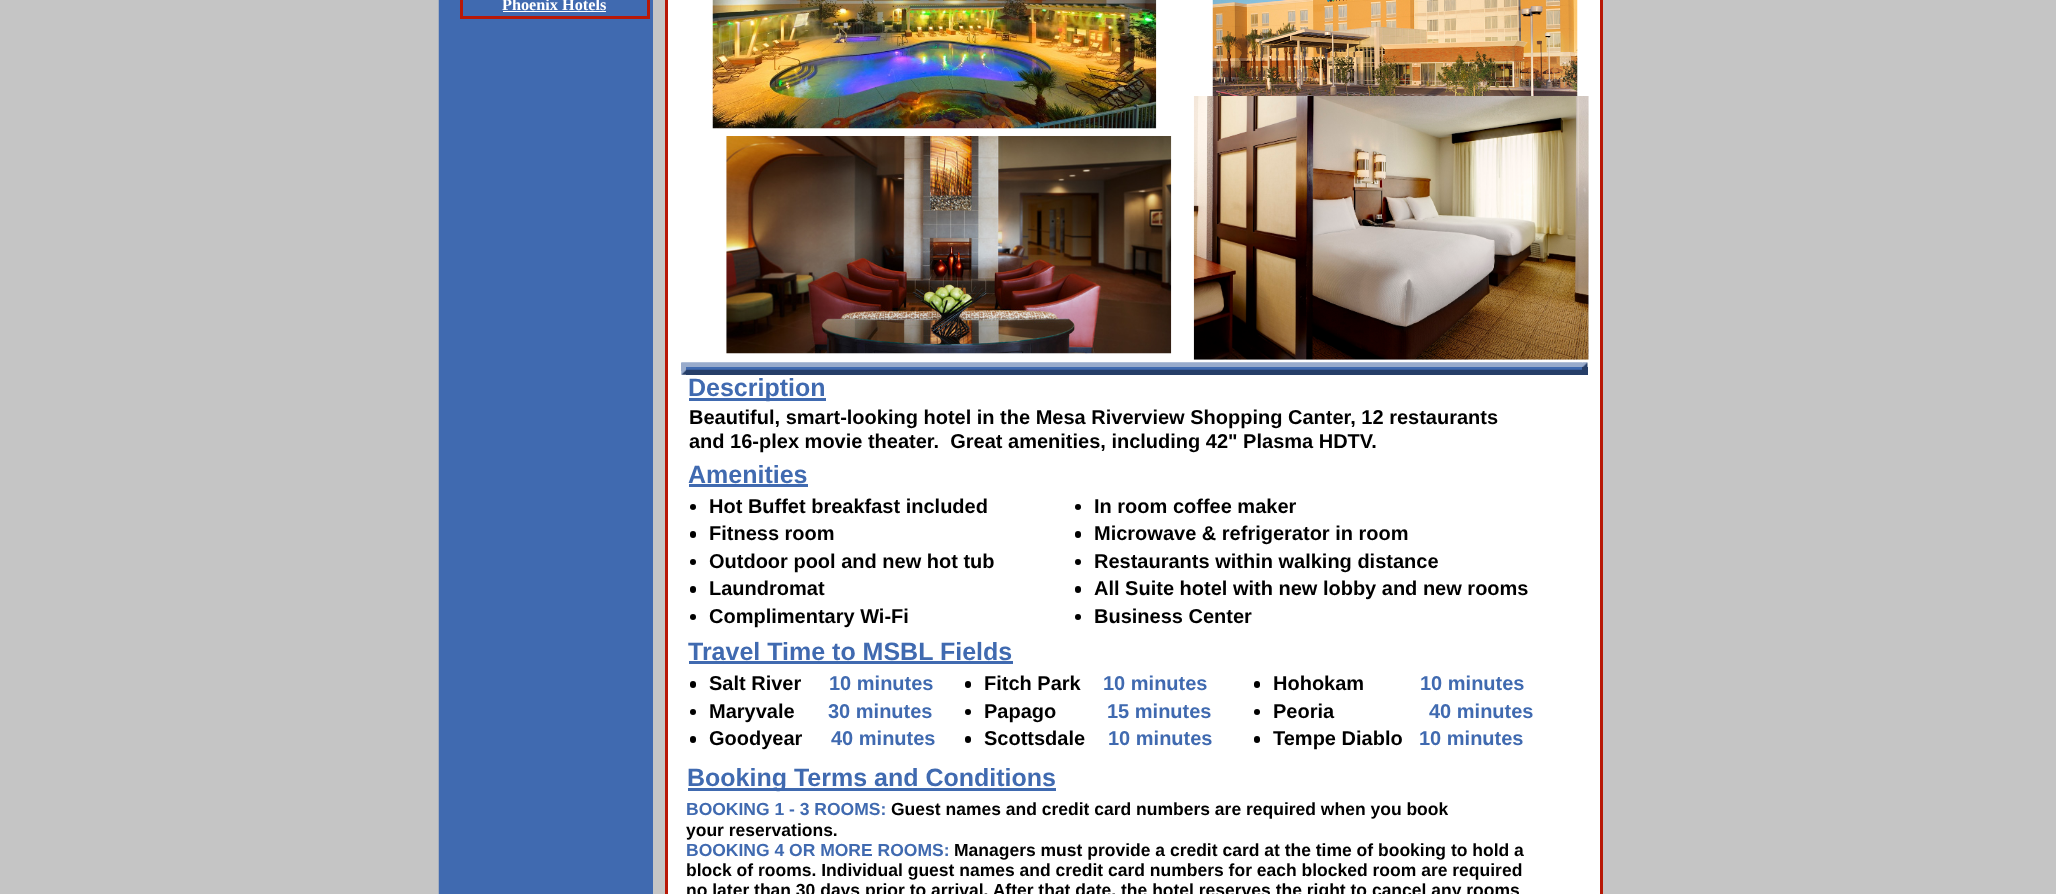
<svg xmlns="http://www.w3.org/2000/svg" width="2056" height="894">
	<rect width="100%" height="100%" fill="#C5C5C5" />
	<rect x="439" y="0" width="214" height="894" fill="#406AB0" />
	<rect x="438" y="0" width="1" height="894" fill="#A4AEC0" />
	<rect x="461.5" y="-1.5" width="187" height="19" fill="none" stroke="#B91806" stroke-width="3" />
	<text x="502" y="10" font-family="Liberation Serif" font-size="16.25" font-weight="700" fill="#FFFFFF">Phoenix Hotels</text>
	<rect x="503" y="11" width="103" height="1" fill="#FFFFFF" />
	<rect x="665" y="0" width="3" height="894" fill="#B91806" />
	<rect x="668" y="0" width="932" height="894" fill="#FFFFFF" />
	<image x="712" y="0" width="445" height="129" href="assets/img1.png" />
	<image x="1212" y="0" width="366" height="96" href="assets/img2.png" />
	<rect x="1600" y="0" width="3" height="894" fill="#B91806" />
	<image x="726" y="136" width="446" height="218" href="assets/img3.png" />
	<image x="1193" y="96" width="396" height="264" href="assets/img4.png" />
	<rect x="681" y="363" width="902" height="5" fill="#98ABCC" />
	<image x="681" y="362" width="902" height="1" href="assets/img5.png" />
	<image x="1582" y="362" width="6" height="5" href="assets/img6.png" />
	<rect x="681" y="368" width="5" height="3" fill="#98ABCC" />
	<rect x="686" y="367" width="897" height="3" fill="#406AB0" />
	<rect x="1582" y="367" width="6" height="3" fill="#263E68" />
	<rect x="686" y="370" width="902" height="5" fill="#263E68" />
	<image x="681" y="369" width="6" height="6" href="assets/img7.png" />
	<image x="686" y="369" width="896" height="2" href="assets/img8.png" />
	<rect x="689" y="398" width="137" height="3" fill="#406AB0" />
	<text x="688" y="396" font-family="Liberation Sans" font-size="25" font-weight="700" fill="#406AB0">Description</text>
	<g font-family="Liberation Sans" font-size="20" font-weight="700" fill="#000000">
		<text x="689" y="424">Beautiful, smart-looking hotel in the Mesa Riverview Shopping Canter, 12 restaurants</text>
		<text x="689" y="448" xml:space="preserve">and 16-plex movie theater.  Great amenities, including 42" Plasma HDTV.</text>
	</g>
	<text x="688" y="483" font-family="Liberation Sans" font-size="25" font-weight="700" fill="#406AB0">Amenities</text>
	<rect x="689" y="484" width="119" height="3" fill="#406AB0" />
	<circle cx="693" cy="507" r="3" fill="#000000" />
	<text x="709" y="513" font-family="Liberation Sans" font-size="20" font-weight="700" fill="#000000">Hot Buffet breakfast included</text>
	<rect x="690" y="531" width="6" height="7" rx="3" fill="#000000" />
	<text x="709" y="540" font-family="Liberation Sans" font-size="20" font-weight="700" fill="#000000">Fitness room</text>
	<circle cx="693" cy="562" r="3" fill="#000000" />
	<text x="709" y="568" font-family="Liberation Sans" font-size="20" font-weight="700" fill="#000000">Outdoor pool and new hot tub</text>
	<rect x="690" y="586" width="6" height="7" rx="3" fill="#000000" />
	<text x="709" y="595" font-family="Liberation Sans" font-size="20" font-weight="700" fill="#000000">Laundromat</text>
	<circle cx="693" cy="617" r="3" fill="#000000" />
	<text x="709" y="623" font-family="Liberation Sans" font-size="20" font-weight="700" fill="#000000">Complimentary Wi-Fi</text>
	<circle cx="1078" cy="507" r="3" fill="#000000" />
	<text x="1094" y="513" font-family="Liberation Sans" font-size="20" font-weight="700" fill="#000000">In room coffee maker</text>
	<rect x="1075" y="531" width="6" height="7" rx="3" fill="#000000" />
	<text x="1094" y="540" font-family="Liberation Sans" font-size="20" font-weight="700" fill="#000000">Microwave &amp; refrigerator in room</text>
	<circle cx="1078" cy="562" r="3" fill="#000000" />
	<text x="1094" y="568" font-family="Liberation Sans" font-size="20" font-weight="700" fill="#000000">Restaurants within walking distance</text>
	<rect x="1075" y="586" width="6" height="7" rx="3" fill="#000000" />
	<text x="1094" y="595" font-family="Liberation Sans" font-size="20" font-weight="700" fill="#000000">All Suite hotel with new lobby and new rooms</text>
	<circle cx="1078" cy="617" r="3" fill="#000000" />
	<text x="1094" y="623" font-family="Liberation Sans" font-size="20" font-weight="700" fill="#000000">Business Center</text>
	<text x="688" y="660" font-family="Liberation Sans" font-size="25" font-weight="700" fill="#406AB0">Travel Time to MSBL Fields</text>
	<rect x="689" y="661" width="324" height="3" fill="#406AB0" />
	<rect x="690" y="681" width="6" height="7" rx="3" fill="#000000" />
	<text x="709" y="690" font-family="Liberation Sans" font-size="20" font-weight="700" fill="#000000">Salt River</text>
	<text x="829" y="690" font-family="Liberation Sans" font-size="20" font-weight="700" fill="#406AB0">10 minutes</text>
	<circle cx="693" cy="712" r="3" fill="#000000" />
	<text x="709" y="718" font-family="Liberation Sans" font-size="20" font-weight="700" fill="#000000">Maryvale</text>
	<text x="828" y="718" font-family="Liberation Sans" font-size="20" font-weight="700" fill="#406AB0">30 minutes</text>
	<rect x="690" y="736" width="6" height="7" rx="3" fill="#000000" />
	<text x="709" y="745" font-family="Liberation Sans" font-size="20" font-weight="700" fill="#000000">Goodyear</text>
	<text x="831" y="745" font-family="Liberation Sans" font-size="20" font-weight="700" fill="#406AB0">40 minutes</text>
	<rect x="965" y="681" width="6" height="7" rx="3" fill="#000000" />
	<text x="984" y="690" font-family="Liberation Sans" font-size="20" font-weight="700" fill="#000000">Fitch Park</text>
	<text x="1103" y="690" font-family="Liberation Sans" font-size="20" font-weight="700" fill="#406AB0">10 minutes</text>
	<circle cx="968" cy="712" r="3" fill="#000000" />
	<text x="984" y="718" font-family="Liberation Sans" font-size="20" font-weight="700" fill="#000000">Papago</text>
	<text x="1107" y="718" font-family="Liberation Sans" font-size="20" font-weight="700" fill="#406AB0">15 minutes</text>
	<rect x="965" y="736" width="6" height="7" rx="3" fill="#000000" />
	<text x="984" y="745" font-family="Liberation Sans" font-size="20" font-weight="700" fill="#000000">Scottsdale</text>
	<text x="1108" y="745" font-family="Liberation Sans" font-size="20" font-weight="700" fill="#406AB0">10 minutes</text>
	<rect x="1254" y="681" width="6" height="7" rx="3" fill="#000000" />
	<text x="1273" y="690" font-family="Liberation Sans" font-size="20" font-weight="700" fill="#000000">Hohokam</text>
	<text x="1420" y="690" font-family="Liberation Sans" font-size="20" font-weight="700" fill="#406AB0">10 minutes</text>
	<circle cx="1257" cy="712" r="3" fill="#000000" />
	<text x="1273" y="718" font-family="Liberation Sans" font-size="20" font-weight="700" fill="#000000">Peoria</text>
	<text x="1429" y="718" font-family="Liberation Sans" font-size="20" font-weight="700" fill="#406AB0">40 minutes</text>
	<rect x="1254" y="736" width="6" height="7" rx="3" fill="#000000" />
	<text x="1273" y="745" font-family="Liberation Sans" font-size="20" font-weight="700" fill="#000000">Tempe Diablo</text>
	<text x="1419" y="745" font-family="Liberation Sans" font-size="20" font-weight="700" fill="#406AB0">10 minutes</text>
	<rect x="688" y="788" width="368" height="3" fill="#406AB0" />
	<text x="687" y="786" font-family="Liberation Sans" font-size="25" font-weight="700" fill="#406AB0">Booking Terms and Conditions</text>
	<text x="686" y="815" font-family="Liberation Sans" font-size="17.5" font-weight="700" fill="#406AB0">BOOKING 1 - 3 ROOMS:</text>
	<g font-family="Liberation Sans" font-size="17.5" font-weight="700" fill="#000000">
		<text x="891" y="815">Guest names and credit card numbers are required when you book</text>
		<text x="686" y="836">your reservations.</text>
	</g>
	<text x="686" y="856" font-family="Liberation Sans" font-size="17.5" font-weight="700" fill="#406AB0">BOOKING 4 OR MORE ROOMS:</text>
	<g font-family="Liberation Sans" font-size="17.5" font-weight="700" fill="#000000">
		<text x="954" y="856">Managers must provide a credit card at the time of booking to hold a</text>
		<text x="686" y="876">block of rooms. Individual guest names and credit card numbers for each blocked room are required</text>
		<text x="686" y="896">no later than 30 days prior to arrival. After that date, the hotel reserves the right to cancel any rooms</text>
	</g>
</svg>
